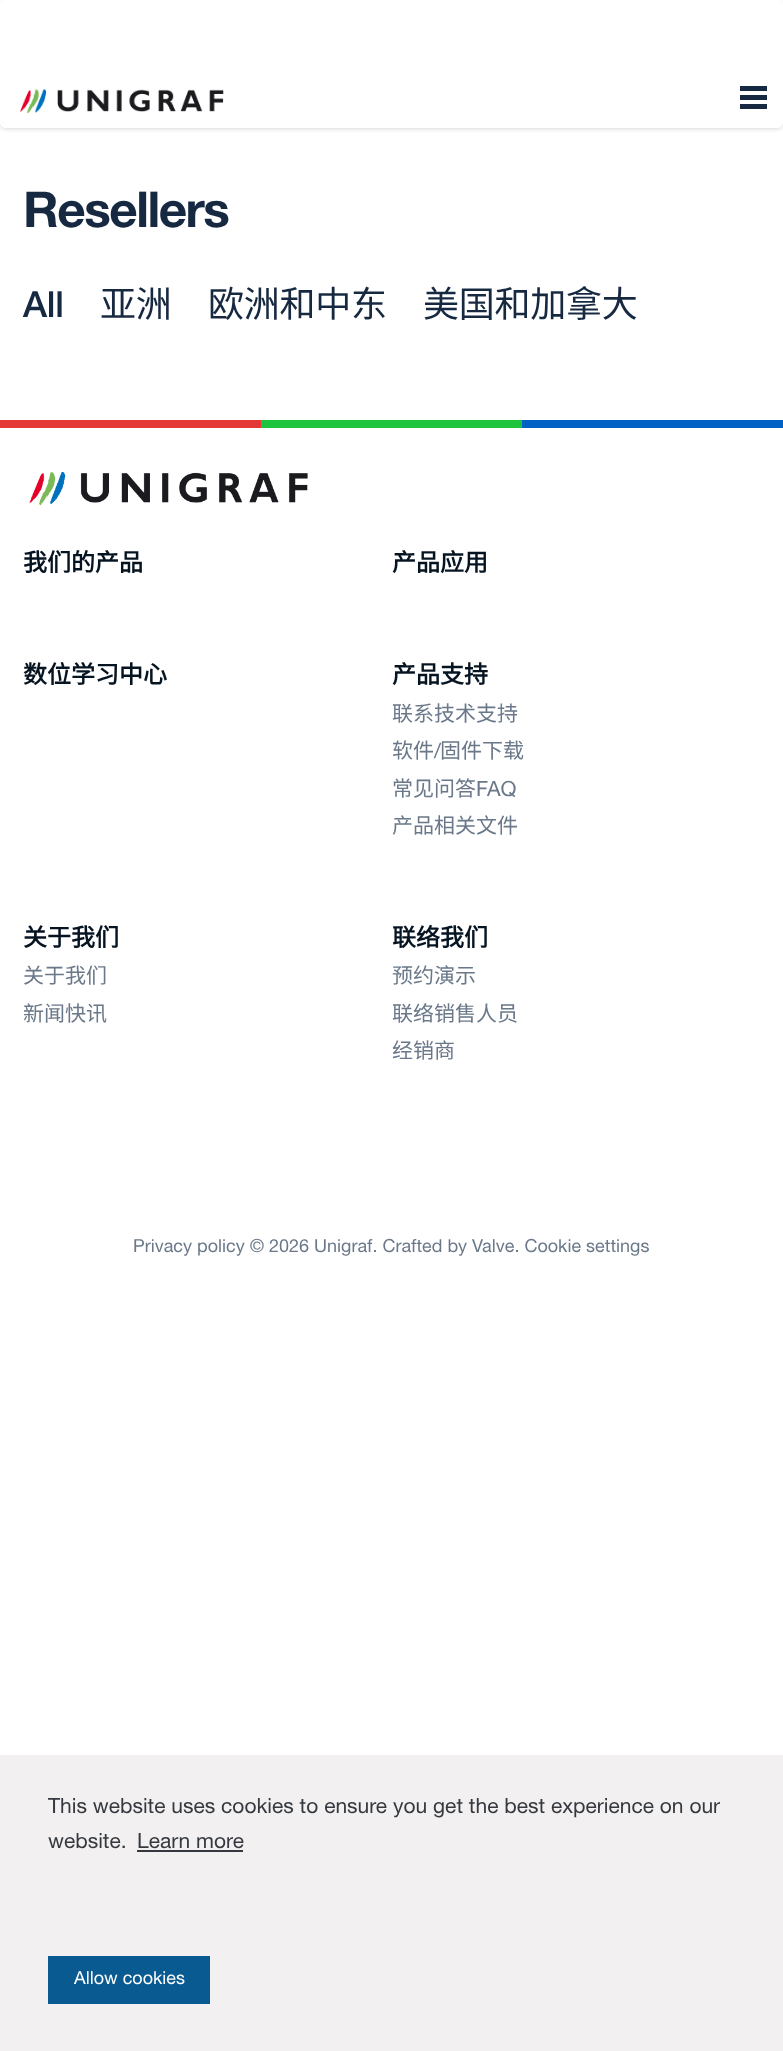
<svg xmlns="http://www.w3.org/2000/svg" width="783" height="2051">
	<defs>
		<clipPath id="clip1"><path d="M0 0H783V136H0ZM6 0H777C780.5 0 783 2.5 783 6V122C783 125.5 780.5 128 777 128H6C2.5 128 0 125.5 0 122V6C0 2.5 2.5 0 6 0Z" clip-rule="evenodd" /></clipPath>
	</defs>
	<rect width="100%" height="100%" fill="#FFFFFF" />
	<g clip-path="url(#clip1)">
		<rect x="0" y="2" width="783" height="127" rx="6" fill="#000000" fill-opacity="0.15" filter="blur(2px)" />
	</g>
	<image x="20" y="89" width="204" height="25" href="assets/img1.png" />
	<rect x="740" y="95" width="27" height="5" fill="#172941" />
	<rect x="740" y="86" width="27" height="5" fill="#172941" />
	<rect x="740" y="104" width="27" height="5" fill="#172941" />
	<text x="23" y="227" font-family="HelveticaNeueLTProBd" font-size="49.5" letter-spacing="-1.5" fill="#172941">Resellers</text>
	<text x="23" y="317" font-family="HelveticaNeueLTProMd" font-size="36" letter-spacing="-0.25" fill="#172941">All</text>
	<g font-family="Noto Sans CJK SC" font-size="36" letter-spacing="-0.25" fill="#172941">
		<text x="100" y="317">亚洲</text>
		<text x="208" y="317">欧洲和中东</text>
		<text x="423" y="317">美国和加拿大</text>
	</g>
	<rect x="0" y="420" width="261" height="8" fill="#E43937" />
	<rect x="261" y="420" width="261" height="8" fill="#1DC53C" />
	<rect x="522" y="420" width="261" height="8" fill="#0062C5" />
	<image x="29" y="472" width="279" height="34" href="assets/img2.png" />
	<g font-family="Noto Sans CJK SC" font-size="24" font-weight="700" fill="#061422">
		<text x="23" y="571">我们的产品</text>
		<text x="392" y="571">产品应用</text>
		<text x="23" y="683">数位学习中心</text>
		<text x="392" y="683">产品支持</text>
	</g>
	<g font-family="Noto Sans CJK SC" font-size="21" fill="#6A7889">
		<text x="392" y="721">联系技术支持</text>
		<text x="392" y="758">软件</text>
	</g>
	<text x="434" y="758" font-family="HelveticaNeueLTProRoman" font-size="21" fill="#6A7889">/</text>
	<g font-family="Noto Sans CJK SC" font-size="21" fill="#6A7889">
		<text x="440" y="758">固件下载</text>
		<text x="392" y="796">常见问答</text>
	</g>
	<text x="476" y="796" font-family="HelveticaNeueLTProRoman" font-size="21" fill="#6A7889">FAQ</text>
	<text x="392" y="833" font-family="Noto Sans CJK SC" font-size="21" fill="#6A7889">产品相关文件</text>
	<text x="23" y="946" font-family="Noto Sans CJK SC" font-size="24" font-weight="700" fill="#061422">关于我们</text>
	<g font-family="Noto Sans CJK SC" font-size="21" fill="#6A7889">
		<text x="23" y="983">关于我们</text>
		<text x="23" y="1021">新闻快讯</text>
	</g>
	<text x="392" y="946" font-family="Noto Sans CJK SC" font-size="24" font-weight="700" fill="#061422">联络我们</text>
	<g font-family="Noto Sans CJK SC" font-size="21" fill="#6A7889">
		<text x="392" y="983">预约演示</text>
		<text x="392" y="1021">联络销售人员</text>
		<text x="392" y="1058">经销商</text>
	</g>
	<text x="133" y="1252" font-family="HelveticaNeueLTProRoman" font-size="18" fill="#6A7889">Privacy policy © 2026 Unigraf. Crafted by Valve. Cookie settings</text>
	<rect x="0" y="1755" width="783" height="296" fill="#F2F0F0" />
	<g font-family="HelveticaNeueLTProRoman" font-size="21" fill="#35383E">
		<text x="48" y="1813">This website uses cookies to ensure you get the best experience on our</text>
		<text x="48" y="1848">website.</text>
		<text x="137" y="1848">Learn more</text>
	</g>
	<rect x="137" y="1850" width="106" height="2" fill="#35383E" />
	<rect x="48" y="1956" width="162" height="48" fill="#085A91" />
	<text x="74" y="1984" font-family="HelveticaNeueLTProRoman" font-size="18" fill="#FFFFFF">Allow cookies</text>
</svg>
